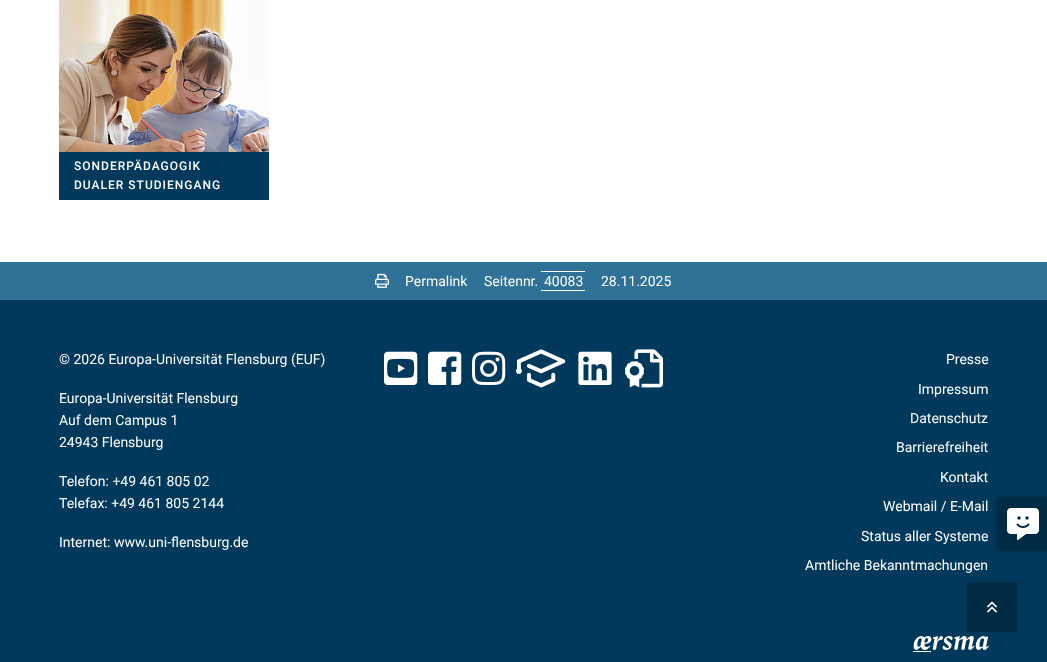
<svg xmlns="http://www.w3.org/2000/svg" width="1047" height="662">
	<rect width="100%" height="100%" fill="#FFFFFF" />
	<image x="59" y="0" width="210" height="152" href="assets/img1.png" />
	<rect x="59" y="152" width="210" height="48" fill="#00395B" />
	<g font-family="Roboto" font-size="12" font-weight="500" letter-spacing="1" fill="#FFFFFF">
		<text x="74" y="170">SONDERPÄDAGOGIK</text>
		<text x="74" y="189">DUALER STUDIENGANG</text>
	</g>
	<rect x="0" y="262" width="1047" height="38" fill="#307197" />
	<image x="375" y="273" width="14" height="15" href="assets/img2.png" />
	<g font-family="Roboto" font-size="14" fill="#FFFFFF">
		<text x="405" y="286">Permalink</text>
		<text x="484" y="286">Seitennr.</text>
	</g>
	<rect x="541" y="271" width="44" height="1" fill="#FFFFFF" />
	<rect x="541" y="290" width="44" height="1" fill="#FFFFFF" />
	<g font-family="Roboto" font-size="14" fill="#FFFFFF">
		<text x="544" y="286">40083</text>
		<text x="601" y="286">28.11.2025</text>
	</g>
	<rect x="0" y="300" width="1047" height="362" fill="#00395B" />
	<g font-family="Roboto" font-size="14" fill="#FFFFFF">
		<text x="59" y="364">© 2026 Europa-Universität Flensburg (EUF)</text>
		<text x="59" y="403">Europa-Universität Flensburg</text>
		<text x="59" y="425">Auf dem Campus 1</text>
		<text x="59" y="447">24943 Flensburg</text>
		<text x="59" y="486">Telefon: +49 461 805 02</text>
		<text x="59" y="508">Telefax: +49 461 805 2144</text>
		<text x="59" y="547">Internet: www.uni-flensburg.de</text>
	</g>
	<image x="384" y="351" width="34" height="34" href="assets/img3.png" />
	<image x="428" y="351" width="34" height="34" href="assets/img4.png" />
	<image x="472" y="351" width="34" height="34" href="assets/img5.png" />
	<image x="516" y="349" width="50" height="39" href="assets/img6.png" />
	<image x="578" y="351" width="34" height="34" href="assets/img7.png" />
	<image x="625" y="349" width="38" height="39" href="assets/img8.png" />
	<g font-family="Roboto" font-size="14" fill="#FFFFFF">
		<text x="946" y="364">Presse</text>
		<text x="918" y="394">Impressum</text>
		<text x="910" y="423">Datenschutz</text>
		<text x="896" y="452">Barrierefreiheit</text>
		<text x="940" y="482">Kontakt</text>
		<text x="883" y="511">Webmail / E-Mail</text>
		<text x="861" y="541">Status aller Systeme</text>
		<text x="805" y="570">Amtliche Bekanntmachungen</text>
	</g>
	<image x="913" y="636" width="76" height="16" href="assets/img9.png" />
	<rect x="967" y="582" width="50" height="50" fill="#002B44" />
	<image x="987" y="601" width="10" height="12" href="assets/img10.png" />
	<rect x="997" y="498" width="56" height="52" fill="#000000" fill-opacity="0.4" filter="blur(2px)" />
	<rect x="997" y="497" width="50" height="52" fill="#002B44" />
	<image x="1007" y="508" width="32" height="32" href="assets/img11.png" />
</svg>
